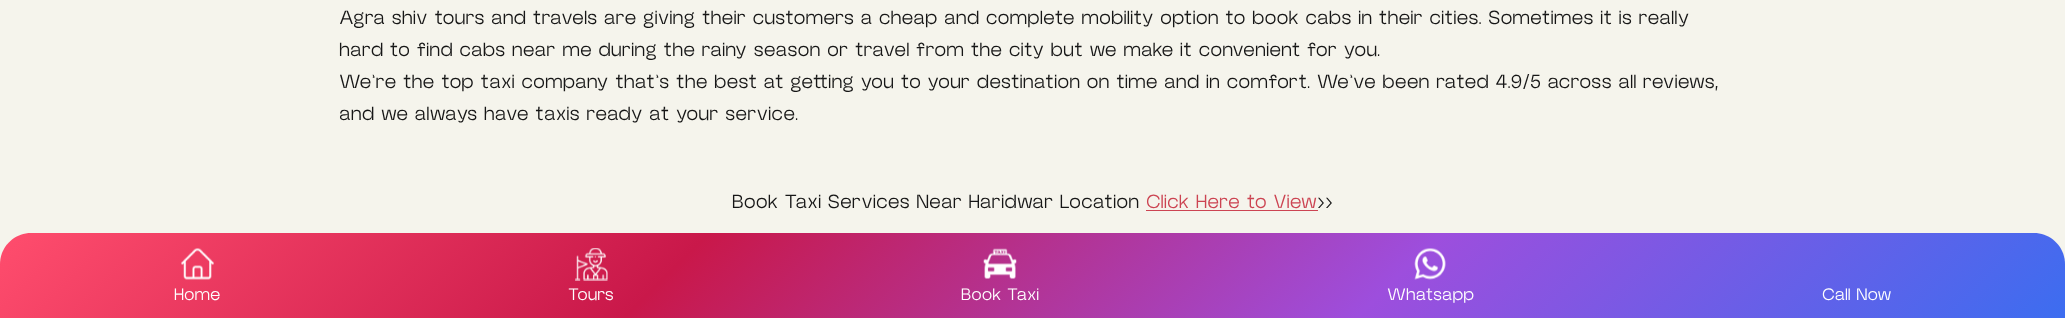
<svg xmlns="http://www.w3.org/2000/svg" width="2065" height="318">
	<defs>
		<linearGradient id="g1" gradientUnits="userSpaceOnUse" x1="495" y1="-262" x2="1570" y2="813"><stop offset="0" stop-color="#FF4D6D" /><stop offset="0.33" stop-color="#C9184A" /><stop offset="0.67" stop-color="#9D4EDD" /><stop offset="1" stop-color="#3C6DF0" /></linearGradient>
	</defs>
	<rect width="100%" height="100%" fill="#F5F4EC" />
	<g font-family="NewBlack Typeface" font-size="20" font-weight="300" fill="#161616">
		<text x="339" y="24">Agra shiv tours and travels are giving their customers a cheap and complete mobility option to book cabs in their cities. Sometimes it is really</text>
		<text x="339" y="56">hard to find cabs near me during the rainy season or travel from the city but we make it convenient for you.</text>
		<text x="339" y="88">We’re the top taxi company that’s the best at getting you to your destination on time and in comfort. We’ve been rated 4.9/5 across all reviews,</text>
		<text x="339" y="120">and we always have taxis ready at your service.</text>
		<text x="732" y="208">Book Taxi Services Near Haridwar Location</text>
	</g>
	<text x="1146" y="208" font-family="NewBlack Typeface" font-size="20" font-weight="300" fill="#CC4452">Click Here to View</text>
	<rect x="1146" y="210" width="172" height="1" fill="#CC4452" />
	<text x="1317" y="208" font-family="NewBlack Typeface" font-size="20" font-weight="300" fill="#161616">&gt;&gt;</text>
	<path d="M31 233H2034C2051 233 2065 247 2065 264V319H0V264C0 247 14 233 31 233Z" fill="url(#g1)" />
	<image x="181" y="248" width="33" height="32" href="assets/img1.png" />
	<text x="174" y="300" font-family="NewBlack Typeface" font-size="17.5" font-weight="300" fill="#FFFFFF">Home</text>
	<image x="575" y="248" width="33" height="33" href="assets/img2.png" />
	<text x="568" y="300" font-family="NewBlack Typeface" font-size="17.5" font-weight="300" fill="#FFFFFF">Tours</text>
	<image x="983" y="248" width="34" height="31" href="assets/img3.png" />
	<text x="961" y="300" font-family="NewBlack Typeface" font-size="17.5" font-weight="300" fill="#FFFFFF">Book Taxi</text>
	<image x="1414" y="248" width="32" height="32" href="assets/img4.png" />
	<g font-family="NewBlack Typeface" font-size="17.5" font-weight="300" fill="#FFFFFF">
		<text x="1387" y="300">Whatsapp</text>
		<text x="1822" y="300">Call Now</text>
	</g>
</svg>
